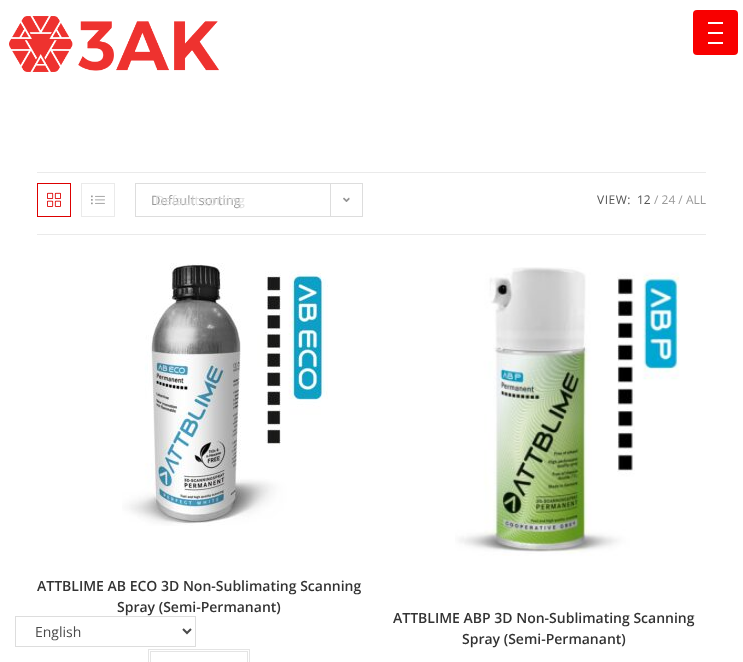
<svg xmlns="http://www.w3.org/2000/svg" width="743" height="662">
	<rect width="100%" height="100%" fill="#FFFFFF" />
	<image x="9" y="16" width="210" height="56" href="assets/img1.png" />
	<rect x="693" y="10" width="45" height="45" rx="4" fill="#F80000" />
	<rect x="708" y="32" width="15" height="2" fill="#FFFFFF" />
	<rect x="708" y="22" width="15" height="2" fill="#FFFFFF" />
	<rect x="708" y="42" width="15" height="2" fill="#FFFFFF" />
	<rect x="37" y="172" width="669" height="1" fill="#EAEAEA" />
	<rect x="37" y="234" width="669" height="1" fill="#EAEAEA" />
	<rect x="37.5" y="183.5" width="33" height="33" fill="none" stroke="#DD0000" />
	<image x="47" y="192" width="14" height="15" href="assets/img2.png" />
	<rect x="81.5" y="183.5" width="33" height="33" fill="none" stroke="#EAEAEA" />
	<image x="91" y="195" width="14" height="10" href="assets/img3.png" />
	<rect x="135.5" y="183.5" width="227" height="33" fill="none" stroke="#DDDDDD" />
	<text x="151" y="205" font-family="Open Sans" font-size="13" fill="#999999">Default sorting</text>
	<rect x="330" y="184" width="1" height="32" fill="#DDDDDD" />
	<image x="343" y="197" width="7" height="5" href="assets/img4.png" />
	<path d="M350 197.5L354 201.5L358 197.5" fill="none" stroke="#FFFFFF" stroke-width="2" />
	<text x="155" y="205" font-family="Open Sans" font-size="13" fill="#E0E0E0">Default sorting</text>
	<text x="597" y="204" font-family="Open Sans" font-size="12" letter-spacing="0.5" fill="#555555">VIEW:</text>
	<text x="637" y="204" font-family="Open Sans" font-size="12" fill="#555555">12</text>
	<text x="654" y="204" font-family="Open Sans" font-size="12" fill="#999999">/ 24 / ALL</text>
	<image x="122" y="263" width="206" height="263" href="assets/img5.png" />
	<g font-family="Open Sans" font-size="14" font-weight="600" fill="#333333">
		<text x="37" y="591">ATTBLIME AB ECO 3D Non-Sublimating Scanning</text>
		<text x="117" y="612">Spray (Semi-Permanant)</text>
	</g>
	<rect x="148.5" y="649.5" width="101" height="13" fill="none" stroke="#E4E4E4" />
	<rect x="150.5" y="651.5" width="97" height="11" fill="none" stroke="#E4E4E4" />
	<image x="455" y="302" width="9" height="254" href="assets/img6.png" />
	<image x="464" y="267" width="216" height="289" href="assets/img7.png" />
	<g font-family="Open Sans" font-size="14" font-weight="600" fill="#333333">
		<text x="393" y="623">ATTBLIME ABP 3D Non-Sublimating Scanning</text>
		<text x="462" y="644">Spray (Semi-Permanant)</text>
	</g>
	<rect x="15.5" y="616.5" width="180" height="30" fill="none" stroke="#DDDDDD" />
	<path d="M183 629L187 633L191 629" fill="none" stroke="#4A4A4A" stroke-width="2" />
	<text x="35" y="637" font-family="Open Sans" font-size="14" fill="#4A4A4A">English</text>
</svg>
